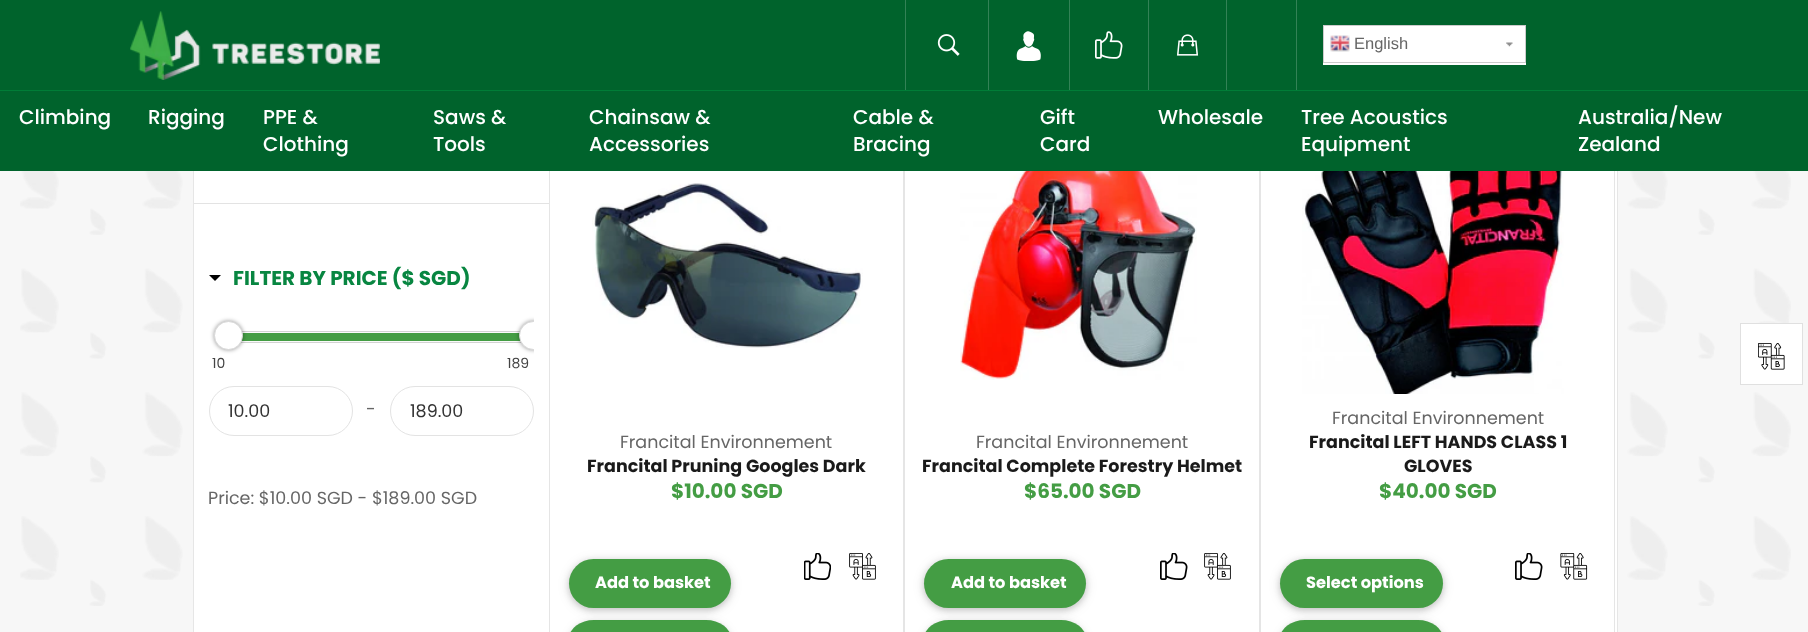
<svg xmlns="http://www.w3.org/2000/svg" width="1808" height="632">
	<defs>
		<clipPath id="clip1"><rect x="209" y="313" width="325" height="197" /></clipPath>
		<clipPath id="clip2"><rect x="209" y="313" width="325" height="197" /></clipPath>
	</defs>
	<rect width="100%" height="100%" fill="#F7F7F7" />
	<image x="20" y="171" width="1771" height="435" href="assets/img8.png" />
	<rect x="194" y="171" width="1423" height="461" fill="#FFFFFF" />
	<rect x="193.5" y="74.5" width="1424" height="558" fill="none" stroke="#E6E6E6" />
	<rect x="549.5" y="74.5" width="354" height="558" fill="none" stroke="#000000" stroke-opacity="0.1" />
	<rect x="904.5" y="74.5" width="355" height="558" fill="none" stroke="#000000" stroke-opacity="0.1" />
	<rect x="1260.5" y="74.5" width="354" height="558" fill="none" stroke="#000000" stroke-opacity="0.1" />
	<rect x="0" y="0" width="1808" height="90" fill="#00632C" />
	<image x="130" y="11" width="250" height="69" href="assets/img1.png" />
	<rect x="905" y="0" width="1" height="90" fill="#338256" />
	<image x="937" y="34" width="23" height="22" href="assets/img2.png" />
	<rect x="988" y="0" width="1" height="90" fill="#338256" />
	<image x="1016" y="31" width="25" height="30" href="assets/img3.png" />
	<rect x="1069" y="0" width="1" height="90" fill="#338256" />
	<image x="1095" y="31" width="28" height="28" href="assets/img4.png" />
	<rect x="1148" y="0" width="1" height="90" fill="#338256" />
	<image x="1176" y="34" width="23" height="22" href="assets/img5.png" />
	<rect x="1226" y="0" width="1" height="90" fill="#338256" />
	<rect x="1296" y="0" width="1" height="90" fill="#338256" />
	<rect x="1323" y="26" width="203" height="39" fill="#FFFFFF" />
	<image x="1506" y="42" width="7" height="5" href="assets/img6.png" />
	<rect x="1323.5" y="25.5" width="202" height="37" fill="none" stroke="#CCCCCC" />
	<image x="1330" y="35" width="20" height="17" href="assets/img7.png" />
	<text x="1354" y="49" font-family="Liberation Sans" font-size="16.5" fill="#666666">English</text>
	<rect x="0" y="90" width="1808" height="1" fill="#007D37" />
	<rect x="0" y="91" width="1808" height="80" fill="#00632C" />
	<g font-family="Poppins" font-size="20" font-weight="500" fill="#FFFFFF">
		<text x="19" y="124">Climbing</text>
		<text x="148" y="124">Rigging</text>
		<text x="263" y="124">PPE &amp;</text>
		<text x="263" y="151">Clothing</text>
		<text x="433" y="124">Saws &amp;</text>
		<text x="433" y="151">Tools</text>
		<text x="589" y="124">Chainsaw &amp;</text>
		<text x="589" y="151">Accessories</text>
		<text x="853" y="124">Cable &amp;</text>
		<text x="853" y="151">Bracing</text>
		<text x="1040" y="124">Gift</text>
		<text x="1040" y="151">Card</text>
		<text x="1158" y="124">Wholesale</text>
		<text x="1301" y="124">Tree Acoustics</text>
		<text x="1301" y="151">Equipment</text>
		<text x="1578" y="124">Australia/New</text>
		<text x="1578" y="151">Zealand</text>
	</g>
	<rect x="194" y="203" width="355" height="1" fill="#E3E3E3" />
	<path d="M209 275H221L215 281Z" fill="#000000" />
	<text x="233" y="285" font-family="Poppins" font-size="20" font-weight="700" fill="#088641">FILTER BY PRICE ($ SGD)</text>
	<rect x="241" y="332" width="280" height="10" fill="#FAFAFA" />
	<rect x="218.5" y="331.5" width="306" height="11" fill="none" stroke="#D3D3D3" />
	<rect x="241" y="333" width="283" height="8" fill="#449D44" />
	<rect x="214" y="321" width="29" height="29" rx="14.5" fill="#000000" fill-opacity="0.4" filter="blur(2px)" />
	<circle cx="228.5" cy="335.5" r="14" fill="#FFFFFF" stroke="#D9D9D9" />
	<g clip-path="url(#clip1)">
		<rect x="519" y="321" width="29" height="29" rx="14.5" fill="#000000" fill-opacity="0.4" filter="blur(2px)" />
	</g>
	<g clip-path="url(#clip2)">
		<circle cx="533.5" cy="335.5" r="14" fill="#FFFFFF" stroke="#D9D9D9" />
	</g>
	<g font-family="Poppins" font-size="14" fill="#444444">
		<text x="212" y="368">10</text>
		<text x="507" y="368">189</text>
	</g>
	<rect x="209.5" y="386.5" width="143" height="49" rx="24.5" fill="none" stroke="#E3E3E3" />
	<text x="228" y="417" font-family="Poppins" font-size="17.5" fill="#333333">10.00</text>
	<text x="366" y="415" font-family="Poppins" font-size="17.5" fill="#666666">-</text>
	<rect x="390.5" y="386.5" width="143" height="49" rx="24.5" fill="none" stroke="#E3E3E3" />
	<text x="410" y="417" font-family="Poppins" font-size="17.5" fill="#333333">189.00</text>
	<text x="208" y="504" font-family="Poppins" font-size="17.5" fill="#666666">Price: $10.00 SGD - $189.00 SGD</text>
	<image x="592" y="183" width="271" height="165" href="assets/img9.png" />
	<text x="620" y="448" font-family="Poppins" font-size="17.5" fill="#666666">Francital Environnement</text>
	<text x="587" y="472" font-family="Poppins" font-size="17.5" font-weight="700" fill="#1A1A1A">Francital Pruning Googles Dark</text>
	<text x="671" y="498" font-family="Poppins" font-size="20" font-weight="700" fill="#449D44">$10.00 SGD</text>
	<image x="804" y="553" width="27" height="27" href="assets/img10.png" />
	<image x="849" y="553" width="27" height="27" href="assets/img11.png" />
	<rect x="569" y="623" width="162" height="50" rx="25" fill="#000000" fill-opacity="0.12" filter="blur(6px)" />
	<rect x="569" y="623" width="162" height="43" rx="25" fill="#000000" fill-opacity="0.16" filter="blur(3px)" />
	<rect x="569" y="620" width="162" height="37" rx="25" fill="#449D44" />
	<rect x="569" y="561" width="162" height="49" rx="24.5" fill="#000000" fill-opacity="0.12" filter="blur(6px)" />
	<rect x="569" y="561" width="162" height="49" rx="24.5" fill="#000000" fill-opacity="0.16" filter="blur(3px)" />
	<rect x="569" y="559" width="162" height="49" rx="24.5" fill="#449D44" />
	<text x="595" y="588" font-family="Poppins" font-size="16.25" font-weight="700" fill="#FFFFFF">Add to basket</text>
	<image x="960" y="171" width="237" height="209" href="assets/img12.png" />
	<text x="976" y="448" font-family="Poppins" font-size="17.5" fill="#666666">Francital Environnement</text>
	<text x="922" y="472" font-family="Poppins" font-size="17.5" font-weight="700" fill="#1A1A1A">Francital Complete Forestry Helmet</text>
	<text x="1024" y="498" font-family="Poppins" font-size="20" font-weight="700" fill="#449D44">$65.00 SGD</text>
	<image x="1160" y="553" width="28" height="27" href="assets/img13.png" />
	<image x="1204" y="553" width="27" height="27" href="assets/img11.png" />
	<rect x="924" y="623" width="162" height="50" rx="25" fill="#000000" fill-opacity="0.12" filter="blur(6px)" />
	<rect x="924" y="623" width="162" height="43" rx="25" fill="#000000" fill-opacity="0.16" filter="blur(3px)" />
	<rect x="924" y="620" width="162" height="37" rx="25" fill="#449D44" />
	<rect x="924" y="561" width="162" height="49" rx="24.5" fill="#000000" fill-opacity="0.12" filter="blur(6px)" />
	<rect x="924" y="561" width="162" height="49" rx="24.5" fill="#000000" fill-opacity="0.16" filter="blur(3px)" />
	<rect x="924" y="559" width="162" height="49" rx="24.5" fill="#449D44" />
	<text x="951" y="588" font-family="Poppins" font-size="16.25" font-weight="700" fill="#FFFFFF">Add to basket</text>
	<image x="1302" y="171" width="262" height="223" href="assets/img14.png" />
	<text x="1332" y="424" font-family="Poppins" font-size="17.5" fill="#666666">Francital Environnement</text>
	<g font-family="Poppins" font-size="17.5" font-weight="700" fill="#1A1A1A">
		<text x="1309" y="448">Francital LEFT HANDS CLASS 1</text>
		<text x="1404" y="472">GLOVES</text>
	</g>
	<text x="1379" y="498" font-family="Poppins" font-size="20" font-weight="700" fill="#449D44">$40.00 SGD</text>
	<image x="1515" y="553" width="28" height="27" href="assets/img13.png" />
	<image x="1560" y="553" width="28" height="27" href="assets/img15.png" />
	<rect x="1280" y="561" width="163" height="49" rx="24.5" fill="#000000" fill-opacity="0.12" filter="blur(6px)" />
	<rect x="1280" y="561" width="163" height="49" rx="24.5" fill="#000000" fill-opacity="0.16" filter="blur(3px)" />
	<rect x="1280" y="559" width="163" height="49" rx="24.5" fill="#449D44" />
	<text x="1306" y="588" font-family="Poppins" font-size="16.25" font-weight="700" fill="#FFFFFF">Select options</text>
	<rect x="1280" y="623" width="163" height="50" rx="25" fill="#000000" fill-opacity="0.12" filter="blur(6px)" />
	<rect x="1280" y="623" width="163" height="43" rx="25" fill="#000000" fill-opacity="0.16" filter="blur(3px)" />
	<rect x="1280" y="620" width="163" height="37" rx="25" fill="#449D44" />
	<rect x="1740.5" y="323.5" width="62" height="61" fill="#FFFFFF" stroke="#E0E0E0" />
	<image x="1758" y="343" width="27" height="27" href="assets/img16.png" />
</svg>
